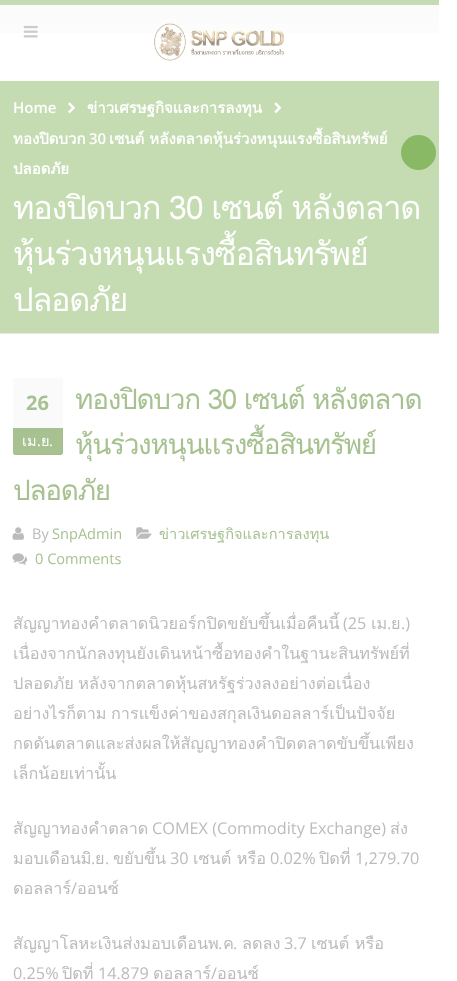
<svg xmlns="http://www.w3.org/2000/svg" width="457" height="981">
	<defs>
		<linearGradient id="g1" gradientUnits="userSpaceOnUse" x1="219" y1="5" x2="219" y2="81"><stop offset="0" stop-color="#FBFBFB" /><stop offset="1" stop-color="#FFFFFF" /></linearGradient>
	</defs>
	<rect width="100%" height="100%" fill="#FFFFFF" />
	<rect x="0" y="5" width="439" height="28" fill="url(#g1)" />
	<rect x="0" y="0" width="439" height="5" fill="#C5DCB2" />
	<image x="23" y="25" width="15" height="13" href="assets/img1.png" />
	<image x="154" y="23" width="131" height="38" href="assets/img2.png" />
	<rect x="0" y="81" width="439" height="252" fill="#C5DCB2" />
	<rect x="0" y="333" width="439" height="1" fill="#E6E6E6" />
	<text x="13" y="113" font-family="Open Sans" font-size="15" font-weight="600" fill="#FFFFFF">Home</text>
	<image x="68" y="102" width="7" height="12" href="assets/img3.png" />
	<text x="87" y="113" font-family="Loma" font-size="15" font-weight="700" fill="#FFFFFF">ข่าวเศรษฐกิจและการลงทุน</text>
	<image x="274" y="102" width="8" height="12" href="assets/img4.png" />
	<text x="13" y="144" font-family="Loma" font-size="15" font-weight="700" fill="#FFFFFF">ทองปิดบวก</text>
	<text x="89" y="144" font-family="Open Sans" font-size="15" font-weight="600" fill="#FFFFFF">30</text>
	<g font-family="Loma" font-size="15" font-weight="700" fill="#FFFFFF">
		<text x="109" y="144">เซนต์ หลังตลาดหุ้นร่วงหนุนแรงซื้อสินทรัพย์</text>
		<text x="13" y="174">ปลอดภัย</text>
	</g>
	<g font-family="Loma" font-size="32.5" letter-spacing="-1.25" fill="#FFFFFF">
		<text x="13" y="219" word-spacing="-1">ทองปิดบวก 30 เซนต์ หลังตลาด</text>
		<text x="13" y="265">หุ้นร่วงหนุนแรงซื้อสินทรัพย์</text>
		<text x="13" y="311">ปลอดภัย</text>
	</g>
	<g font-family="Loma" font-size="27.9" letter-spacing="-1.25" fill="#A7C190">
		<text x="75" y="409" word-spacing="-0.5">ทองปิดบวก 30 เซนต์ หลังตลาด</text>
		<text x="75" y="454">หุ้นร่วงหนุนแรงซื้อสินทรัพย์</text>
		<text x="13" y="500">ปลอดภัย</text>
	</g>
	<image x="12" y="527" width="12" height="13" href="assets/img5.png" />
	<text x="32" y="539" font-family="Open Sans" font-size="14.6" fill="#BBBBBB">By</text>
	<text x="52" y="539" font-family="Open Sans" font-size="14.6" fill="#A7C190">SnpAdmin</text>
	<image x="136" y="527" width="16" height="12" href="assets/img6.png" />
	<text x="159" y="539" font-family="Loma" font-size="14.6" fill="#A7C190">ข่าวเศรษฐกิจและการลงทุน</text>
	<image x="12" y="553" width="16" height="12" href="assets/img7.png" />
	<text x="35" y="564" font-family="Open Sans" font-size="14.6" fill="#A7C190">0 Comments</text>
	<text x="13" y="629" font-family="Loma" font-size="16.25" fill="#BBBBBB">สัญญาทองคำตลาดนิวยอร์กปิดขยับขึ้นเมื่อคืนนี้</text>
	<text x="343" y="629" font-family="Open Sans" font-size="16.25" fill="#BBBBBB">(25</text>
	<text x="371" y="629" font-family="Loma" font-size="16.25" fill="#BBBBBB">เม</text>
	<text x="387" y="629" font-family="Open Sans" font-size="16.25" fill="#BBBBBB">.</text>
	<text x="391" y="629" font-family="Loma" font-size="16.25" fill="#BBBBBB">ย</text>
	<text x="401" y="629" font-family="Open Sans" font-size="16.25" fill="#BBBBBB">.)</text>
	<g font-family="Loma" font-size="16.25" fill="#BBBBBB">
		<text x="13" y="659">เนื่องจากนักลงทุนยังเดินหน้าซื้อทองคำในฐานะสินทรัพย์ที่</text>
		<text x="13" y="689" word-spacing="-1">ปลอดภัย หลังจากตลาดหุ้นสหรัฐร่วงลงอย่างต่อเนื่อง</text>
		<text x="13" y="719" word-spacing="-1">อย่างไรก็ตาม การแข็งค่าของสกุลเงินดอลลาร์เป็นปัจจัย</text>
		<text x="13" y="749">กดดันตลาดและส่งผลให้สัญญาทองคำปิดตลาดขับขึ้นเพียง</text>
		<text x="13" y="779">เล็กน้อยเท่านั้น</text>
		<text x="13" y="834">สัญญาทองคำตลาด</text>
	</g>
	<text x="152" y="834" font-family="Open Sans" font-size="16.25" fill="#BBBBBB">COMEX (Commodity Exchange)</text>
	<g font-family="Loma" font-size="16.25" fill="#BBBBBB">
		<text x="390" y="834">ส่ง</text>
		<text x="13" y="864">มอบเดือนมิ</text>
	</g>
	<text x="91" y="864" font-family="Open Sans" font-size="16.25" fill="#BBBBBB">.</text>
	<text x="95" y="864" font-family="Loma" font-size="16.25" fill="#BBBBBB">ย</text>
	<text x="105" y="864" font-family="Open Sans" font-size="16.25" fill="#BBBBBB">.</text>
	<text x="113" y="864" font-family="Loma" font-size="16.25" fill="#BBBBBB">ขยับขึ้น</text>
	<text x="170" y="864" font-family="Open Sans" font-size="16.25" fill="#BBBBBB">30</text>
	<text x="193" y="864" font-family="Loma" font-size="16.25" fill="#BBBBBB">เซนต์ หรือ</text>
	<text x="270" y="864" font-family="Open Sans" font-size="16.25" fill="#BBBBBB">0.02%</text>
	<text x="319" y="864" font-family="Loma" font-size="16.25" fill="#BBBBBB">ปิดที่</text>
	<text x="355" y="864" font-family="Open Sans" font-size="16.25" fill="#BBBBBB">1,279.70</text>
	<text x="13" y="894" font-family="Loma" font-size="16.25" fill="#BBBBBB">ดอลลาร์</text>
	<text x="71" y="894" font-family="Open Sans" font-size="16.25" fill="#BBBBBB">/</text>
	<g font-family="Loma" font-size="16.25" fill="#BBBBBB">
		<text x="77" y="894">ออนซ์</text>
		<text x="13" y="949">สัญญาโลหะเงินส่งมอบเดือนพ</text>
	</g>
	<text x="218" y="949" font-family="Open Sans" font-size="16.25" fill="#BBBBBB">.</text>
	<text x="223" y="949" font-family="Loma" font-size="16.25" fill="#BBBBBB">ค</text>
	<text x="233" y="949" font-family="Open Sans" font-size="16.25" fill="#BBBBBB">.</text>
	<text x="242" y="949" font-family="Loma" font-size="16.25" fill="#BBBBBB">ลดลง</text>
	<text x="284" y="949" font-family="Open Sans" font-size="16.25" fill="#BBBBBB">3.7</text>
	<text x="311" y="949" font-family="Loma" font-size="16.25" fill="#BBBBBB">เซนต์ หรือ</text>
	<text x="13" y="979" font-family="Open Sans" font-size="16.25" fill="#BBBBBB">0.25%</text>
	<text x="62" y="979" font-family="Loma" font-size="16.25" fill="#BBBBBB">ปิดที่</text>
	<text x="98" y="979" font-family="Open Sans" font-size="16.25" fill="#BBBBBB">14.879</text>
	<text x="153" y="979" font-family="Loma" font-size="16.25" fill="#BBBBBB">ดอลลาร์</text>
	<text x="211" y="979" font-family="Open Sans" font-size="16.25" fill="#BBBBBB">/</text>
	<text x="217" y="979" font-family="Loma" font-size="16.25" fill="#BBBBBB">ออนซ์</text>
	<path d="M15.5 378H60.5C62 378 63 379 63 380.5V428H13V380.5C13 379 14 378 15.5 378Z" fill="#FAFAFA" />
	<text x="26" y="410" font-family="Open Sans" font-size="20" font-weight="700" fill="#A7C190">26</text>
	<path d="M13 428H63V452.5C63 454 62 455 60.5 455H15.5C14 455 13 454 13 452.5Z" fill="#A7C190" />
	<path d="M13 453C13 454 14 455 16 455H60C62 455 63 454 63 452V428H62V451C62 453 61 454 60 454H15Z" fill="#808080" fill-opacity="0.07" />
	<text x="22" y="446" font-family="Loma" font-size="14.6" fill="#FFFFFF">เม</text>
	<text x="37" y="446" font-family="Open Sans" font-size="14.6" fill="#FFFFFF">.</text>
	<text x="41" y="446" font-family="Loma" font-size="14.6" fill="#FFFFFF">ย</text>
	<text x="49" y="446" font-family="Open Sans" font-size="14.6" fill="#FFFFFF">.</text>
	<circle cx="418.5" cy="152.5" r="17.5" fill="#8AB965" />
</svg>
